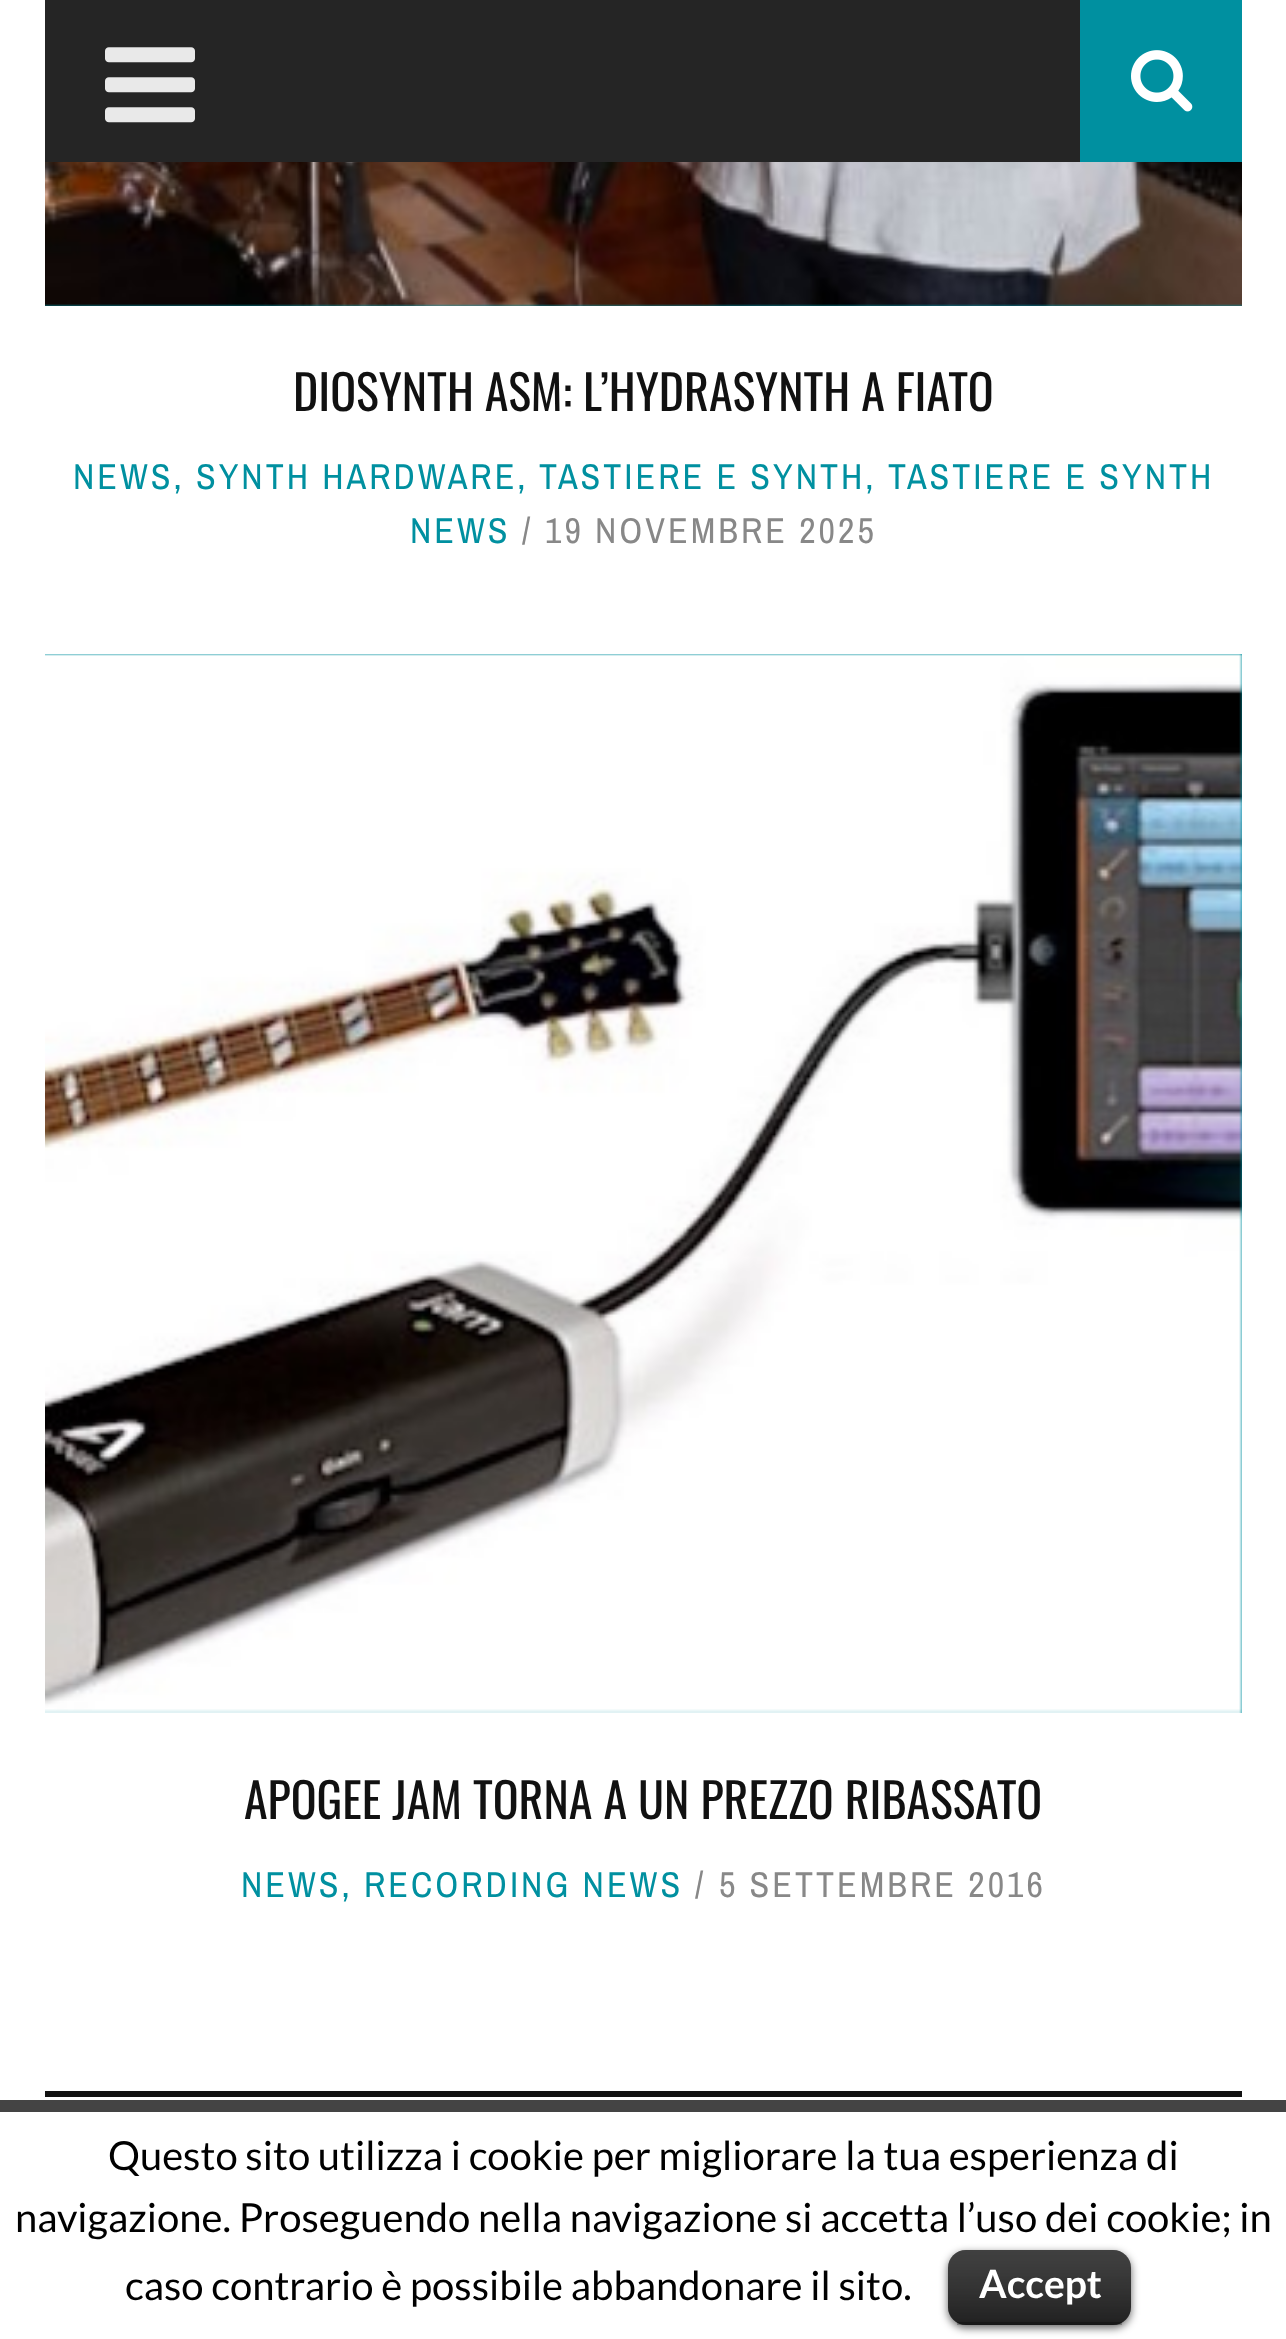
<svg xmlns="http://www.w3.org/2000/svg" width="1286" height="2339">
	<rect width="100%" height="100%" fill="#FFFFFF" />
	<rect x="45" y="0" width="1035" height="162" fill="#252525" />
	<image x="105" y="47" width="90" height="76" href="assets/img1.png" />
	<rect x="1080" y="0" width="162" height="162" fill="#0090A0" />
	<image x="1131" y="50" width="62" height="62" href="assets/img2.png" />
	<rect x="45" y="304" width="1197" height="2" fill="#0090A0" />
	<image x="45" y="162" width="1197" height="144" href="assets/img3.png" />
	<text x="293" y="411" font-family="Oswald" font-size="48" fill="#111111">DIOSYNTH ASM: L’HYDRASYNTH A FIATO</text>
	<g font-family="Archivo Narrow" font-size="36" letter-spacing="3" fill="#0090A0">
		<text x="73" y="489">NEWS, SYNTH HARDWARE,</text>
		<text x="539" y="489">TASTIERE E SYNTH,</text>
		<text x="888" y="489">TASTIERE E SYNTH</text>
		<text x="410" y="543">NEWS</text>
	</g>
	<g font-family="Archivo Narrow" font-size="36" letter-spacing="3" fill="#888888">
		<text x="522" y="543">/</text>
		<text x="545" y="543">19 NOVEMBRE 2025</text>
	</g>
	<rect x="45" y="654" width="1197" height="1059" fill="#0090A0" />
	<image x="45" y="654" width="1197" height="1059" href="assets/img4.png" />
	<text x="244" y="1819" font-family="Oswald" font-size="48" fill="#111111">APOGEE JAM TORNA A UN PREZZO RIBASSATO</text>
	<text x="241" y="1897" font-family="Archivo Narrow" font-size="36" letter-spacing="3" fill="#0090A0">NEWS, RECORDING NEWS</text>
	<g font-family="Archivo Narrow" font-size="36" letter-spacing="3" fill="#888888">
		<text x="695" y="1897">/</text>
		<text x="719" y="1897">5 SETTEMBRE 2016</text>
	</g>
	<rect x="45" y="2091" width="1197" height="6" fill="#111111" />
	<rect x="0" y="2100" width="1286" height="12" fill="#444444" />
	<g font-family="Lato" font-size="40" fill="#000000">
		<text x="108" y="2170">Questo sito utilizza i cookie per migliorare la tua esperienza di</text>
		<text x="15" y="2232">navigazione. Proseguendo nella navigazione si accetta l’uso dei cookie; in</text>
		<text x="125" y="2300">caso contrario è possibile abbandonare il sito.</text>
	</g>
	<rect x="948" y="2253" width="183" height="75" rx="18" fill="#000000" fill-opacity="0.6" filter="blur(4.5px)" />
	<rect x="948" y="2250" width="183" height="75" rx="18" fill="#000000" />
	<image x="948" y="2250" width="183" height="75" href="assets/img5.png" />
	<rect x="957" y="2322" width="165" height="3" fill="#000000" fill-opacity="0.25" />
	<text x="979" y="2298" font-family="Lato" font-size="39" font-weight="700" fill="#FFFFFF">Accept</text>
</svg>
